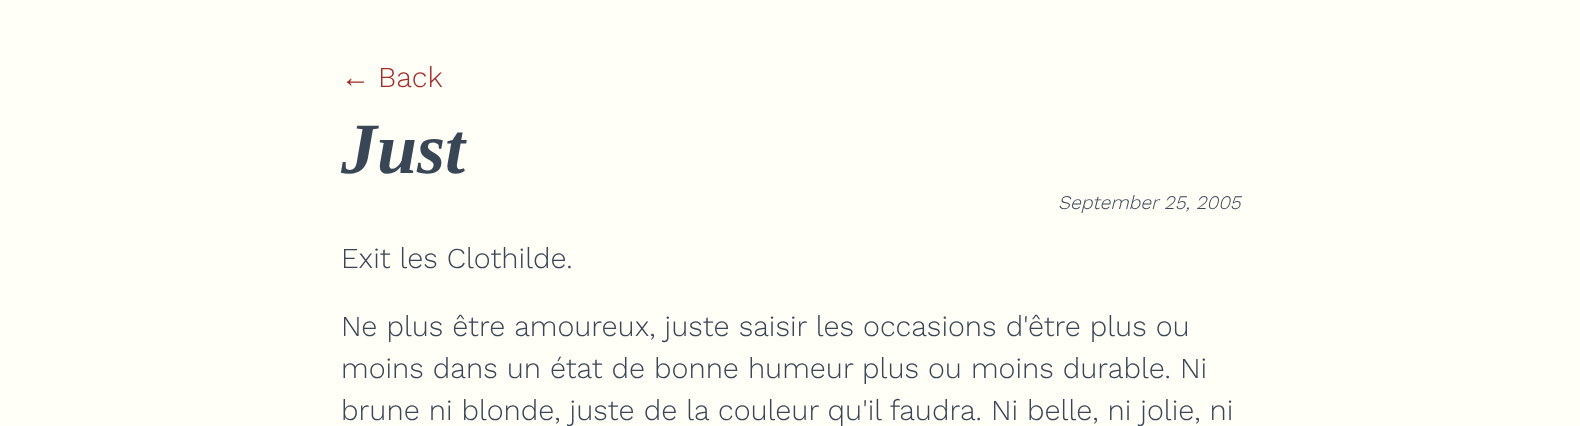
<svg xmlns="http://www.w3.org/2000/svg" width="1580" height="426">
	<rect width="100%" height="100%" fill="#FFFEF7" />
	<text x="341" y="87" font-family="Liberation Sans" font-size="28.8" fill="#A52A2A">←</text>
	<text x="378" y="87" font-family="Work Sans" font-size="28.8" font-weight="300" fill="#A52A2A">Back</text>
	<text x="341" y="173" font-family="Liberation Serif" font-size="72" font-weight="700" font-style="italic" fill="#394655">Just</text>
	<text x="1058" y="209" font-family="Work Sans" font-size="19.25" font-weight="300" font-style="italic" fill="#394655">September 25, 2005</text>
	<g font-family="Work Sans" font-size="28.8" font-weight="300" fill="#394655">
		<text x="341" y="268">Exit les Clothilde.</text>
		<text x="341" y="336">Ne plus être amoureux, juste saisir les occasions d'être plus ou</text>
		<text x="341" y="378">moins dans un état de bonne humeur plus ou moins durable. Ni</text>
		<text x="341" y="420">brune ni blonde, juste de la couleur qu'il faudra. Ni belle, ni jolie, ni</text>
	</g>
</svg>
